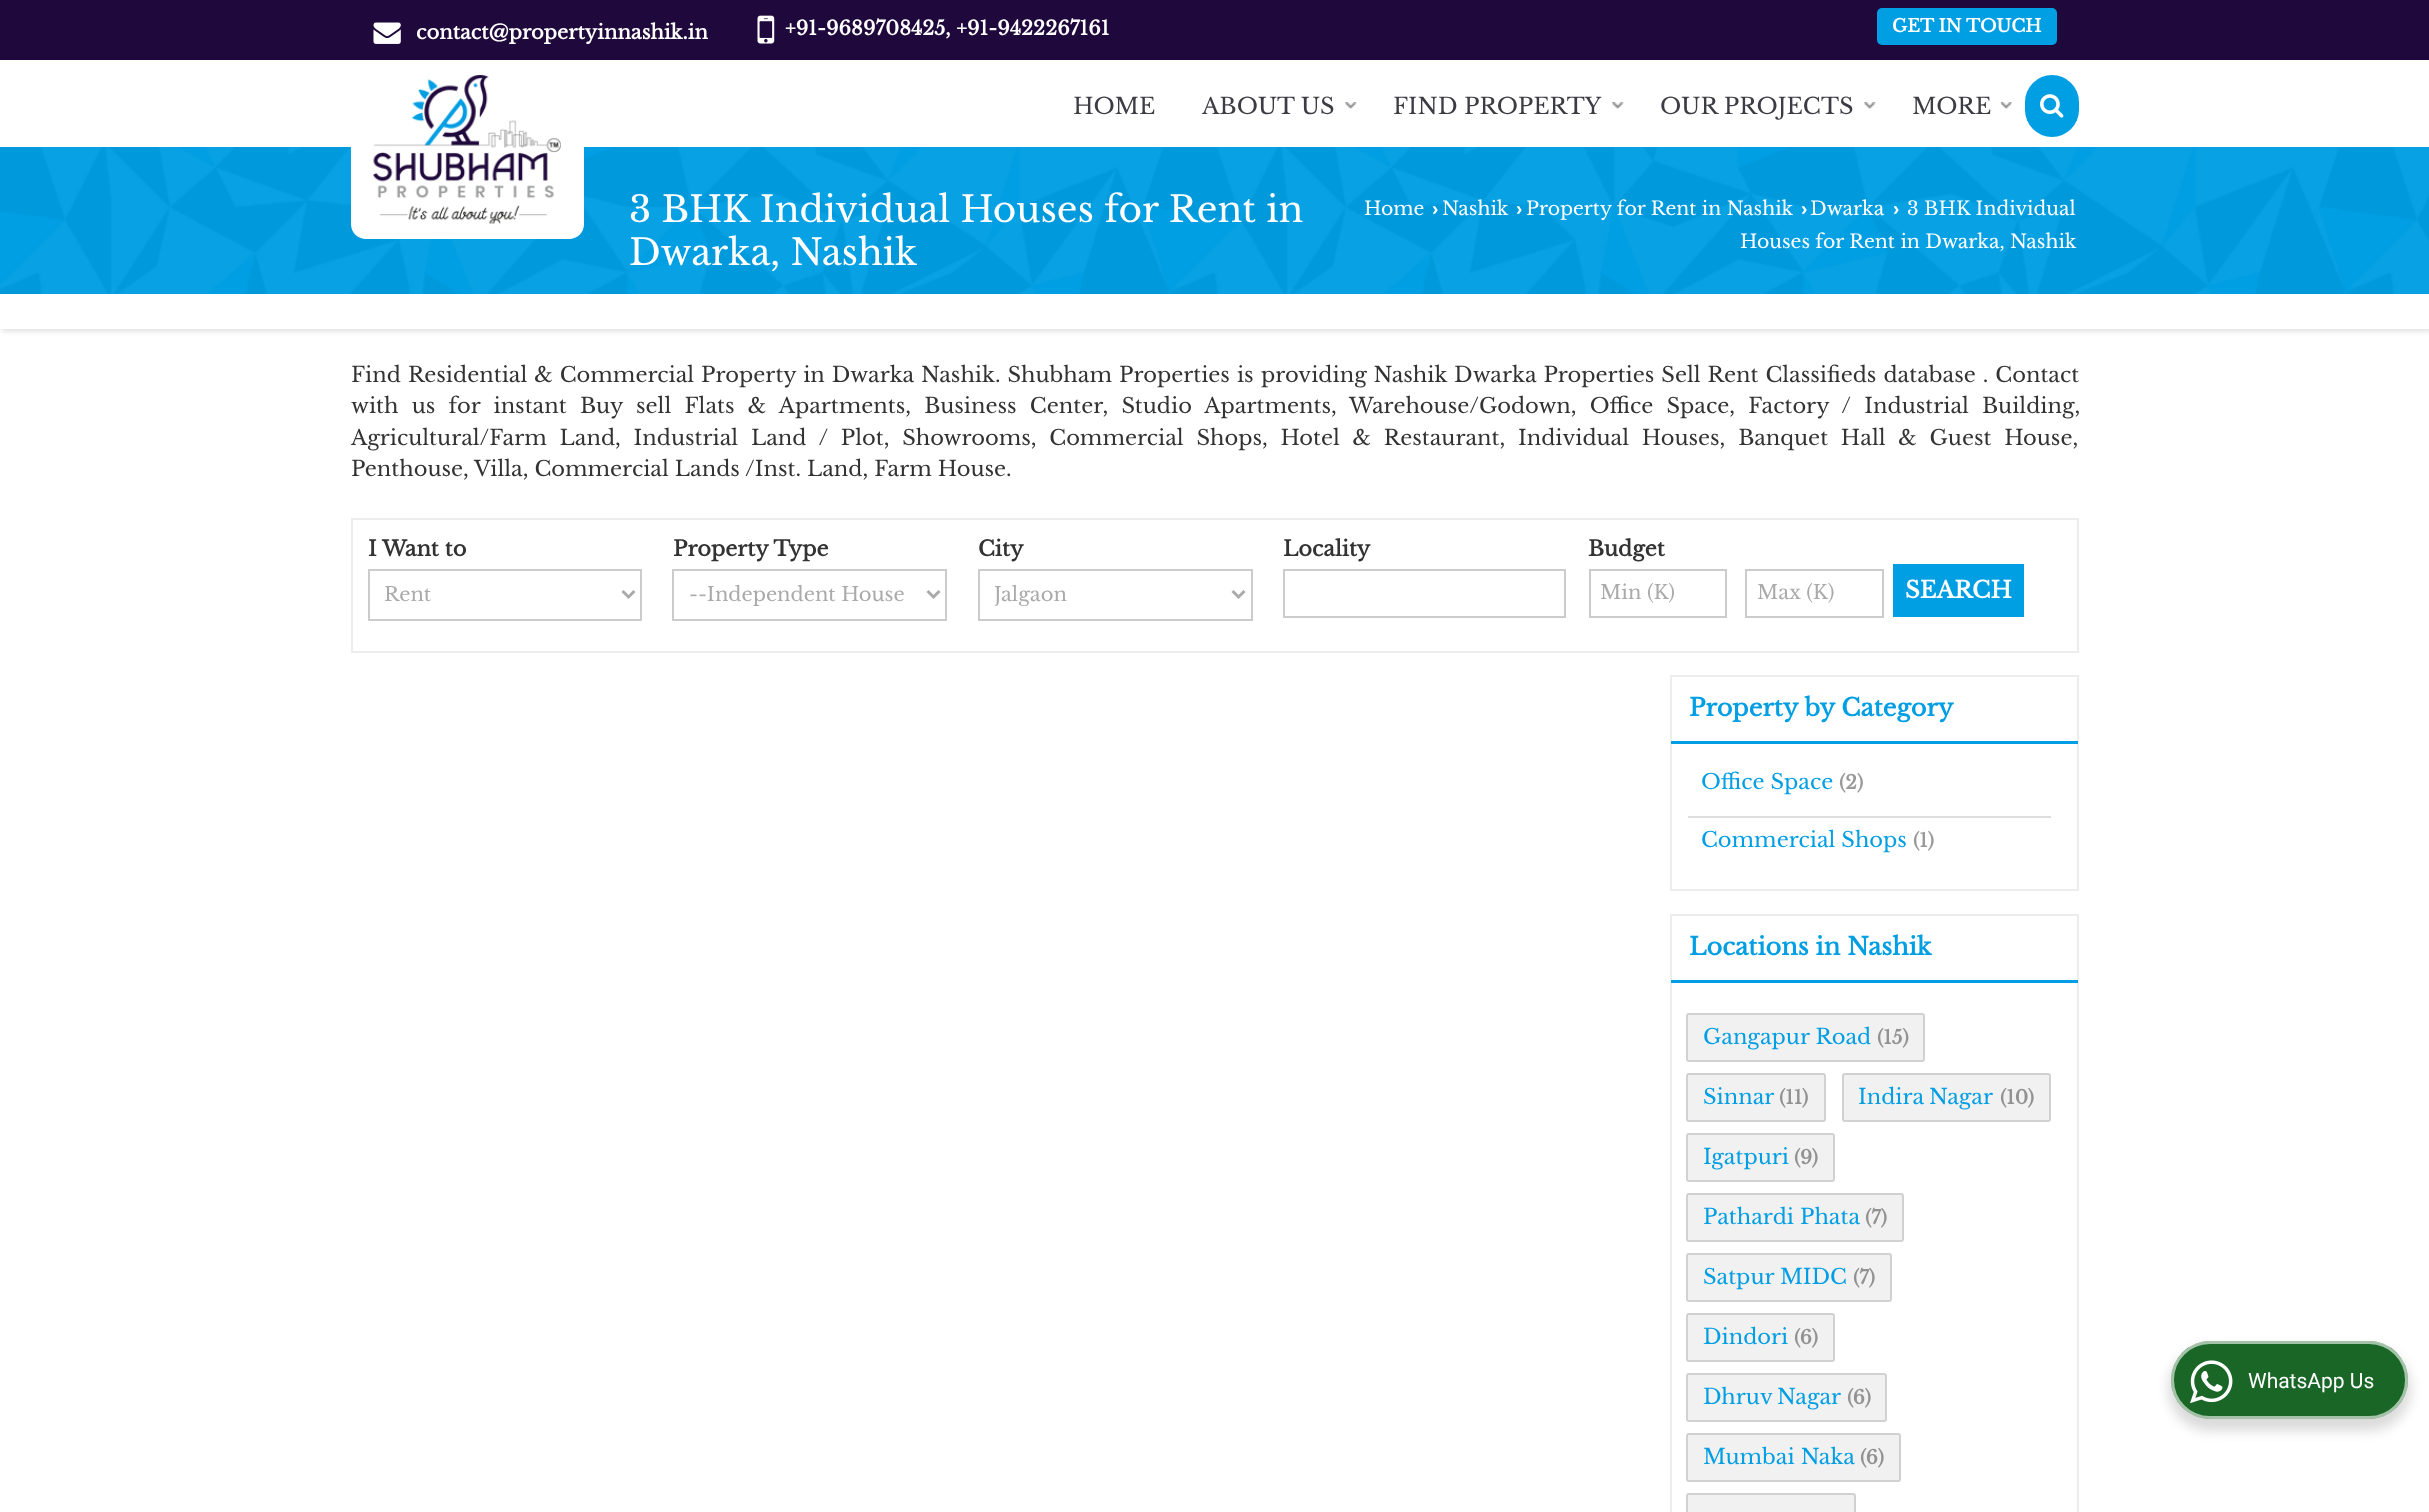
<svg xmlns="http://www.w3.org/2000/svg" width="2429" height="1512">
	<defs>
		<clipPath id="clip1"><path d="M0 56H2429V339H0ZM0 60H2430V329H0Z" clip-rule="evenodd" /></clipPath>
		<clipPath id="clip2"><rect x="995" y="581" width="223" height="28" /></clipPath>
	</defs>
	<rect width="100%" height="100%" fill="#FFFFFF" />
	<rect x="0" y="0" width="2429" height="60" fill="#1F093C" />
	<image x="373" y="22" width="28" height="22" href="assets/img1.png" />
	<text x="416" y="39" font-family="Libre Baskerville" font-size="19.5" font-weight="700" fill="#FFFFFF">contact@propertyinnashik.in</text>
	<image x="757" y="15" width="18" height="29" href="assets/img2.png" />
	<text x="785" y="35" font-family="Libre Baskerville" font-size="19.5" font-weight="700" fill="#FFFFFF">+91-9689708425, +91-9422267161</text>
	<rect x="1877" y="8" width="180" height="37" rx="5" fill="#009EE3" />
	<text x="1892" y="32" font-family="Libre Baskerville" font-size="17.5" font-weight="700" fill="#FFFFFF">GET IN TOUCH</text>
	<g clip-path="url(#clip1)">
		<rect x="2" y="63" width="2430" height="269" fill="#000000" fill-opacity="0.1" filter="blur(2px)" />
	</g>
	<rect x="0" y="147" width="2429" height="147" fill="#009EE3" />
	<image x="0" y="147" width="2429" height="147" href="assets/img8.png" />
	<path d="M351 60H584V224C584 232.5 577.5 239 569 239H366C357.5 239 351 232.5 351 224Z" fill="#FFFFFF" />
	<image x="373" y="75" width="188" height="149" href="assets/img3.png" />
	<g font-family="Libre Baskerville" font-size="22.5" fill="#3C3C44">
		<text x="1073" y="114">HOME</text>
		<text x="1202" y="114">ABOUT US</text>
	</g>
	<image x="1345" y="102" width="12" height="7" href="assets/img4.png" />
	<text x="1393" y="114" font-family="Libre Baskerville" font-size="22.5" fill="#3C3C44">FIND PROPERTY</text>
	<image x="1612" y="102" width="12" height="7" href="assets/img5.png" />
	<text x="1660" y="114" font-family="Libre Baskerville" font-size="22.5" fill="#3C3C44">OUR PROJECTS</text>
	<image x="1864" y="102" width="12" height="7" href="assets/img4.png" />
	<text x="1912" y="114" font-family="Libre Baskerville" font-size="22.5" fill="#3C3C44">MORE</text>
	<image x="2000" y="102" width="12" height="8" href="assets/img6.png" />
	<rect x="2025" y="75" width="54" height="62" rx="27" fill="#009EE3" />
	<image x="2040" y="94" width="24" height="24" href="assets/img7.png" />
	<g font-family="Libre Baskerville" font-size="36" fill="#FFFFFF">
		<text x="629" y="222">3 BHK Individual Houses for Rent in</text>
		<text x="629" y="265">Dwarka, Nashik</text>
	</g>
	<text x="1364" y="215" font-family="Libre Baskerville" font-size="18.9" fill="#FFFFFF">Home</text>
	<text x="1432" y="215" font-family="Liberation Sans" font-size="18.9" font-weight="700" fill="#FFFFFF">›</text>
	<text x="1442" y="215" font-family="Libre Baskerville" font-size="18.9" fill="#FFFFFF">Nashik</text>
	<text x="1516" y="215" font-family="Liberation Sans" font-size="18.9" font-weight="700" fill="#FFFFFF">›</text>
	<text x="1526" y="215" font-family="Libre Baskerville" font-size="18.9" fill="#FFFFFF">Property for Rent in Nashik</text>
	<text x="1801" y="215" font-family="Liberation Sans" font-size="18.9" font-weight="700" fill="#FFFFFF">›</text>
	<text x="1810" y="215" font-family="Libre Baskerville" font-size="18.9" fill="#FFFFFF">Dwarka</text>
	<text x="1893" y="215" font-family="Liberation Sans" font-size="18.9" font-weight="700" fill="#FFFFFF">›</text>
	<g font-family="Libre Baskerville" font-size="18.9" fill="#FFFFFF">
		<text x="1907" y="215">3 BHK Individual</text>
		<text x="1740" y="248">Houses for Rent in Dwarka, Nashik</text>
	</g>
	<g font-family="Libre Baskerville" font-size="21" fill="#333333">
		<text x="351" y="382" word-spacing="1">Find Residential &amp; Commercial Property in Dwarka Nashik. Shubham Properties is</text>
		<text x="1261" y="382" word-spacing="1">providing Nashik Dwarka Properties Sell Rent Classifieds database . Contact</text>
		<text x="351" y="413" word-spacing="7.25">with us for instant Buy sell Flats &amp; Apartments, Business Center, Studio Apartments, Warehouse/Godown, Office Space, Factory / Industrial Building,</text>
		<text x="351" y="445" word-spacing="6.75">Agricultural/Farm Land, Industrial Land / Plot, Showrooms, Commercial Shops, Hotel &amp; Restaurant, Individual Houses, Banquet Hall &amp; Guest House,</text>
		<text x="351" y="476">Penthouse, Villa, Commercial Lands /Inst. Land, Farm House.</text>
	</g>
	<rect x="352" y="519" width="1726" height="133" fill="none" stroke="#EDEDED" stroke-width="2" />
	<text x="368" y="556" font-family="Libre Baskerville" font-size="21" font-weight="700" fill="#333333">I Want to</text>
	<rect x="369" y="570" width="272" height="50" fill="none" stroke="#CCCCCC" stroke-width="2" />
	<path d="M622.5 591L628.5 597L634.5 591" fill="none" stroke="#AAAAAA" stroke-width="3" />
	<text x="384" y="601" font-family="Libre Baskerville" font-size="19.5" fill="#AAAAAA">Rent</text>
	<text x="673" y="556" font-family="Libre Baskerville" font-size="21" font-weight="700" fill="#333333">Property Type</text>
	<rect x="673" y="570" width="273" height="50" fill="none" stroke="#CCCCCC" stroke-width="2" />
	<path d="M927.5 591L933.5 597L939.5 591" fill="none" stroke="#AAAAAA" stroke-width="3" />
	<text x="689" y="601" font-family="Libre Baskerville" font-size="19.5" fill="#AAAAAA">--Independent House</text>
	<text x="978" y="556" font-family="Libre Baskerville" font-size="21" font-weight="700" fill="#333333">City</text>
	<rect x="979" y="570" width="273" height="50" fill="none" stroke="#CCCCCC" stroke-width="2" />
	<path d="M1232.5 591L1238.5 597L1244.5 591" fill="none" stroke="#AAAAAA" stroke-width="3" />
	<g clip-path="url(#clip2)">
		<text x="994" y="601" font-family="Libre Baskerville" font-size="19.5" fill="#AAAAAA">Jalgaon</text>
	</g>
	<text x="1283" y="556" font-family="Libre Baskerville" font-size="21" font-weight="700" fill="#333333">Locality</text>
	<rect x="1284" y="570" width="281" height="47" fill="none" stroke="#CCCCCC" stroke-width="2" />
	<text x="1588" y="556" font-family="Libre Baskerville" font-size="21" font-weight="700" fill="#333333">Budget</text>
	<rect x="1590" y="570" width="136" height="47" fill="none" stroke="#CCCCCC" stroke-width="2" />
	<text x="1600" y="599" font-family="Libre Baskerville" font-size="19.5" fill="#AAAAAA">Min (K)</text>
	<rect x="1746" y="570" width="137" height="47" fill="none" stroke="#CCCCCC" stroke-width="2" />
	<text x="1757" y="599" font-family="Libre Baskerville" font-size="19.5" fill="#AAAAAA">Max (K)</text>
	<rect x="1893" y="564" width="131" height="53" fill="#009EE3" />
	<text x="1905" y="598" font-family="Libre Baskerville" font-size="23" font-weight="700" fill="#FFFFFF">SEARCH</text>
	<rect x="1671" y="676" width="407" height="214" fill="none" stroke="#EDEDED" stroke-width="2" />
	<rect x="1671" y="741" width="407" height="3" fill="#009EE3" />
	<text x="1689" y="716" font-family="Libre Baskerville" font-size="24" font-weight="700" fill="#009EE3">Property by Category</text>
	<text x="1701" y="789" font-family="Libre Baskerville" font-size="21" fill="#009EE3">Office Space</text>
	<text x="1839" y="789" font-family="Libre Baskerville" font-size="18.9" font-weight="700" fill="#999999">(2)</text>
	<rect x="1688" y="816" width="363" height="2" fill="#DEDEDE" />
	<text x="1701" y="847" font-family="Libre Baskerville" font-size="21" fill="#009EE3">Commercial Shops</text>
	<text x="1913" y="847" font-family="Libre Baskerville" font-size="18.9" font-weight="700" fill="#999999">(1)</text>
	<rect x="1671" y="915" width="407" height="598" fill="none" stroke="#EDEDED" stroke-width="2" />
	<rect x="1671" y="980" width="407" height="3" fill="#009EE3" />
	<text x="1689" y="955" font-family="Libre Baskerville" font-size="24" font-weight="700" fill="#009EE3">Locations in Nashik</text>
	<rect x="1686" y="1013" width="239" height="49" rx="3" fill="#F1F1F1" />
	<rect x="1687" y="1014" width="237" height="47" rx="2" fill="none" stroke="#000000" stroke-opacity="0.13" stroke-width="2" />
	<text x="1703" y="1044" font-family="Libre Baskerville" font-size="21" fill="#009EE3">Gangapur Road</text>
	<text x="1877" y="1044" font-family="Libre Baskerville" font-size="18.9" font-weight="700" fill="#929292">(15)</text>
	<rect x="1686" y="1073" width="140" height="49" rx="3" fill="#F1F1F1" />
	<rect x="1687" y="1074" width="138" height="47" rx="2" fill="none" stroke="#000000" stroke-opacity="0.13" stroke-width="2" />
	<text x="1703" y="1104" font-family="Libre Baskerville" font-size="21" fill="#009EE3">Sinnar</text>
	<text x="1779" y="1104" font-family="Libre Baskerville" font-size="18.9" font-weight="700" fill="#929292">(11)</text>
	<rect x="1842" y="1073" width="209" height="49" rx="3" fill="#F1F1F1" />
	<rect x="1843" y="1074" width="207" height="47" rx="2" fill="none" stroke="#000000" stroke-opacity="0.13" stroke-width="2" />
	<text x="1858" y="1104" word-spacing="-1" font-family="Libre Baskerville" font-size="21" fill="#009EE3">Indira Nagar</text>
	<text x="2000" y="1104" font-family="Libre Baskerville" font-size="18.9" font-weight="700" fill="#929292">(10)</text>
	<rect x="1686" y="1133" width="149" height="49" rx="3" fill="#F1F1F1" />
	<rect x="1687" y="1134" width="147" height="47" rx="2" fill="none" stroke="#000000" stroke-opacity="0.13" stroke-width="2" />
	<text x="1703" y="1164" font-family="Libre Baskerville" font-size="21" fill="#009EE3">Igatpuri</text>
	<text x="1794" y="1164" font-family="Libre Baskerville" font-size="18.9" font-weight="700" fill="#929292">(9)</text>
	<rect x="1686" y="1193" width="218" height="49" rx="3" fill="#F1F1F1" />
	<rect x="1687" y="1194" width="216" height="47" rx="2" fill="none" stroke="#000000" stroke-opacity="0.13" stroke-width="2" />
	<text x="1703" y="1224" font-family="Libre Baskerville" font-size="21" fill="#009EE3">Pathardi Phata</text>
	<text x="1865" y="1224" font-family="Libre Baskerville" font-size="18.9" font-weight="700" fill="#929292">(7)</text>
	<rect x="1686" y="1253" width="206" height="49" rx="3" fill="#F1F1F1" />
	<rect x="1687" y="1254" width="204" height="47" rx="2" fill="none" stroke="#000000" stroke-opacity="0.13" stroke-width="2" />
	<text x="1703" y="1284" font-family="Libre Baskerville" font-size="21" fill="#009EE3">Satpur MIDC</text>
	<text x="1853" y="1284" font-family="Libre Baskerville" font-size="18.9" font-weight="700" fill="#929292">(7)</text>
	<rect x="1686" y="1313" width="149" height="49" rx="3" fill="#F1F1F1" />
	<rect x="1687" y="1314" width="147" height="47" rx="2" fill="none" stroke="#000000" stroke-opacity="0.13" stroke-width="2" />
	<text x="1703" y="1344" font-family="Libre Baskerville" font-size="21" fill="#009EE3">Dindori</text>
	<text x="1794" y="1344" font-family="Libre Baskerville" font-size="18.9" font-weight="700" fill="#929292">(6)</text>
	<rect x="1686" y="1373" width="201" height="49" rx="3" fill="#F1F1F1" />
	<rect x="1687" y="1374" width="199" height="47" rx="2" fill="none" stroke="#000000" stroke-opacity="0.13" stroke-width="2" />
	<text x="1703" y="1404" word-spacing="-1" font-family="Libre Baskerville" font-size="21" fill="#009EE3">Dhruv Nagar</text>
	<text x="1847" y="1404" font-family="Libre Baskerville" font-size="18.9" font-weight="700" fill="#929292">(6)</text>
	<rect x="1686" y="1433" width="215" height="49" rx="3" fill="#F1F1F1" />
	<rect x="1687" y="1434" width="213" height="47" rx="2" fill="none" stroke="#000000" stroke-opacity="0.13" stroke-width="2" />
	<text x="1703" y="1464" font-family="Libre Baskerville" font-size="21" fill="#009EE3">Mumbai Naka</text>
	<text x="1860" y="1464" font-family="Libre Baskerville" font-size="18.9" font-weight="700" fill="#929292">(6)</text>
	<rect x="1686" y="1493" width="170" height="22" rx="3" fill="#F1F1F1" />
	<rect x="1687" y="1494" width="168" height="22" rx="2" fill="none" stroke="#000000" stroke-opacity="0.13" stroke-width="2" />
	<rect x="2168" y="1347" width="243" height="84" rx="42" fill="#000000" fill-opacity="0.14" filter="blur(6px)" />
	<rect x="2171" y="1341" width="237" height="78" rx="39" fill="#196626" />
	<rect x="2172.5" y="1342.5" width="234" height="75" rx="37.5" fill="none" stroke="#FFFFFF" stroke-opacity="0.6" stroke-width="3" />
	<image x="2190" y="1360" width="43" height="44" href="assets/img9.png" />
	<text x="2248" y="1388" font-family="Roboto" font-size="21" fill="#FFFFFF">WhatsApp Us</text>
</svg>
